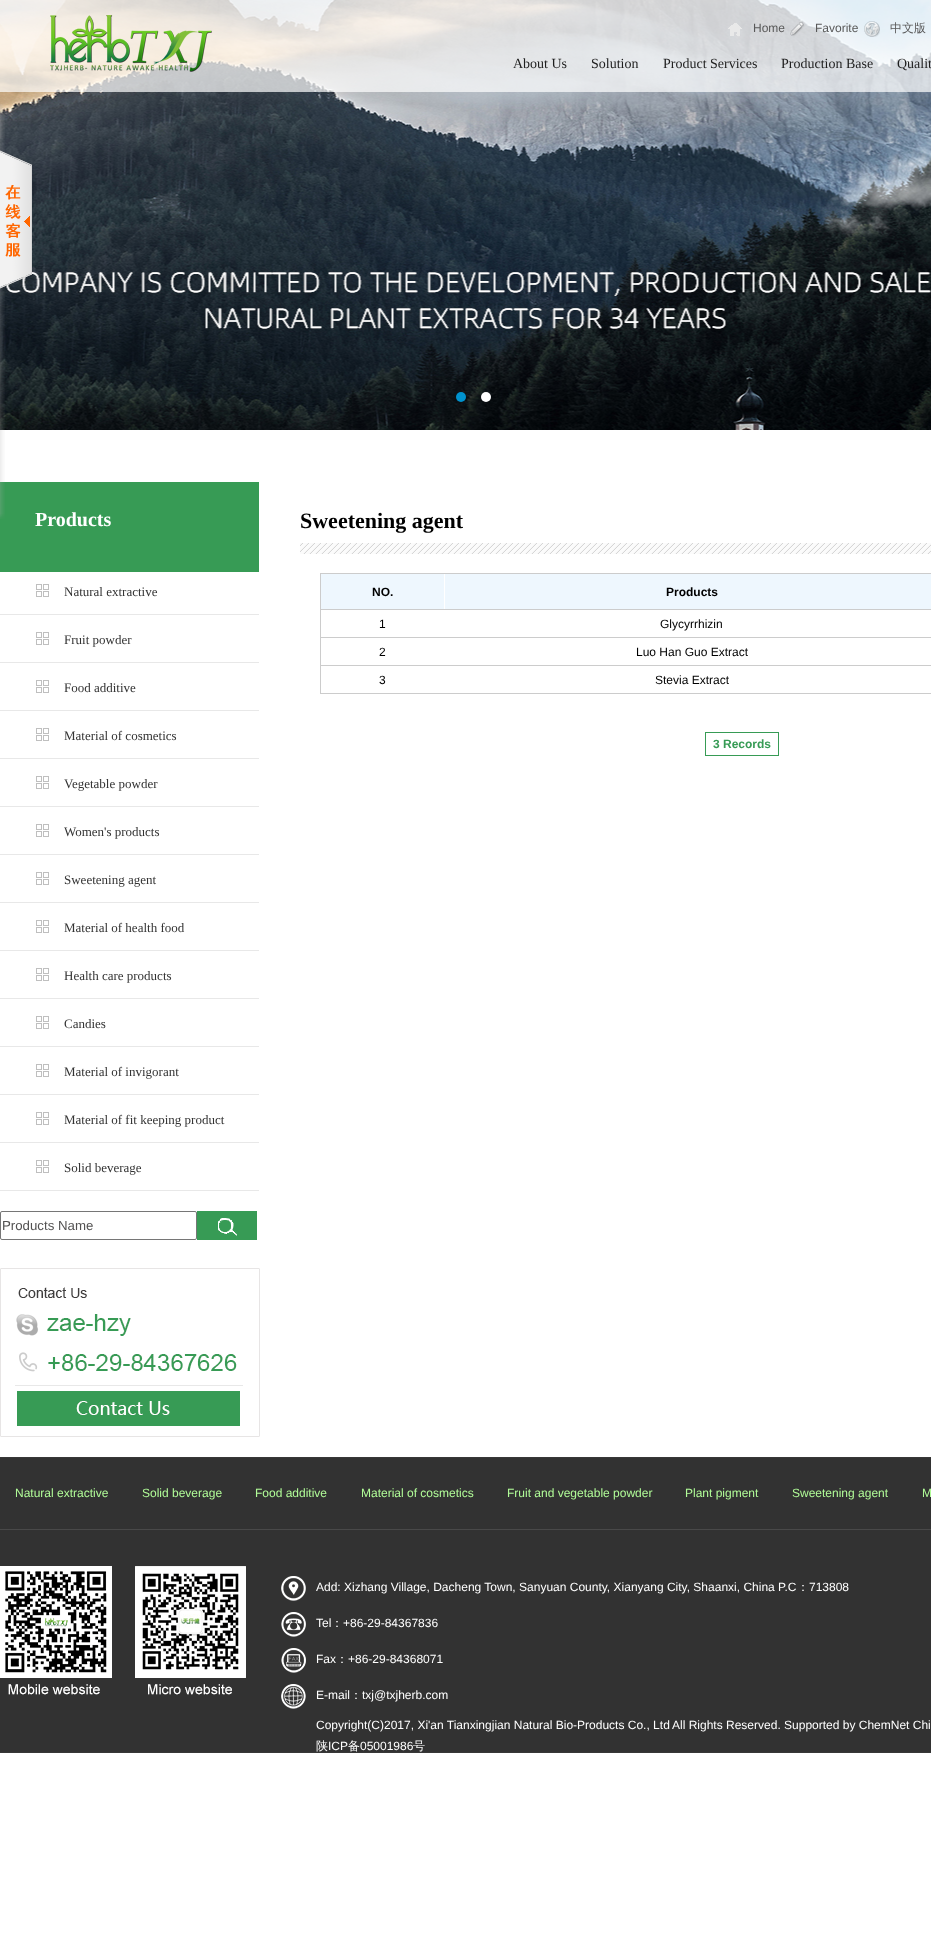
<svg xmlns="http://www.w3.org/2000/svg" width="931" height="1936">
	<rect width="100%" height="100%" fill="#FFFFFF" />
	<image x="0" y="0" width="931" height="430" href="assets/img1.png" />
	<circle cx="461" cy="397" r="5" fill="#0092CE" />
	<circle cx="486" cy="397" r="5" fill="#FFFFFF" />
	<rect x="0" y="0" width="931" height="92" fill="#FFFFFF" fill-opacity="0.7" />
	<image x="50" y="15" width="162" height="57" href="assets/img2.png" />
	<image x="728" y="23" width="14" height="13" href="assets/img3.png" />
	<text x="753" y="32" font-family="Liberation Sans" font-size="12" fill="#595959">Home</text>
	<image x="790" y="22" width="15" height="14" href="assets/img4.png" />
	<text x="815" y="32" font-family="Liberation Sans" font-size="12" fill="#595959">Favorite</text>
	<image x="864" y="21" width="16" height="16" href="assets/img5.png" />
	<text x="890" y="32" font-family="WenQuanYi Zen Hei" font-size="12" font-weight="500" fill="#595959">中文版</text>
	<g font-family="Liberation Serif" font-size="14" fill="#1E1E1E">
		<text x="513" y="68">About Us</text>
		<text x="591" y="68">Solution</text>
		<text x="663" y="68">Product Services</text>
		<text x="781" y="68">Production Base</text>
		<text x="897" y="68">Qualit</text>
	</g>
	<rect x="0" y="482" width="259" height="90" fill="#379B55" />
	<text x="35" y="526" font-family="Liberation Serif" font-size="20" font-weight="700" fill="#FFFFFF">Products</text>
	<image x="36" y="584" width="13" height="13" href="assets/img6.png" />
	<rect x="0" y="614" width="259" height="1" fill="#E8E8E8" />
	<text x="64" y="596" font-family="Liberation Serif" font-size="13" fill="#333333">Natural extractive</text>
	<image x="36" y="632" width="13" height="13" href="assets/img6.png" />
	<rect x="0" y="662" width="259" height="1" fill="#E8E8E8" />
	<text x="64" y="644" font-family="Liberation Serif" font-size="13" fill="#333333">Fruit powder</text>
	<image x="36" y="680" width="13" height="13" href="assets/img6.png" />
	<rect x="0" y="710" width="259" height="1" fill="#E8E8E8" />
	<text x="64" y="692" font-family="Liberation Serif" font-size="13" fill="#333333">Food additive</text>
	<image x="36" y="728" width="13" height="13" href="assets/img6.png" />
	<rect x="0" y="758" width="259" height="1" fill="#E8E8E8" />
	<text x="64" y="740" font-family="Liberation Serif" font-size="13" fill="#333333">Material of cosmetics</text>
	<image x="36" y="776" width="13" height="13" href="assets/img6.png" />
	<rect x="0" y="806" width="259" height="1" fill="#E8E8E8" />
	<text x="64" y="788" font-family="Liberation Serif" font-size="13" fill="#333333">Vegetable powder</text>
	<image x="36" y="824" width="13" height="13" href="assets/img6.png" />
	<rect x="0" y="854" width="259" height="1" fill="#E8E8E8" />
	<text x="64" y="836" font-family="Liberation Serif" font-size="13" fill="#333333">Women's products</text>
	<image x="36" y="872" width="13" height="13" href="assets/img6.png" />
	<rect x="0" y="902" width="259" height="1" fill="#E8E8E8" />
	<text x="64" y="884" font-family="Liberation Serif" font-size="13" fill="#333333">Sweetening agent</text>
	<image x="36" y="920" width="13" height="13" href="assets/img6.png" />
	<rect x="0" y="950" width="259" height="1" fill="#E8E8E8" />
	<text x="64" y="932" font-family="Liberation Serif" font-size="13" fill="#333333">Material of health food</text>
	<image x="36" y="968" width="13" height="13" href="assets/img6.png" />
	<rect x="0" y="998" width="259" height="1" fill="#E8E8E8" />
	<text x="64" y="980" font-family="Liberation Serif" font-size="13" fill="#333333">Health care products</text>
	<image x="36" y="1016" width="13" height="13" href="assets/img6.png" />
	<rect x="0" y="1046" width="259" height="1" fill="#E8E8E8" />
	<text x="64" y="1028" font-family="Liberation Serif" font-size="13" fill="#333333">Candies</text>
	<image x="36" y="1064" width="13" height="13" href="assets/img6.png" />
	<rect x="0" y="1094" width="259" height="1" fill="#E8E8E8" />
	<text x="64" y="1076" font-family="Liberation Serif" font-size="13" fill="#333333">Material of invigorant</text>
	<image x="36" y="1112" width="13" height="13" href="assets/img6.png" />
	<rect x="0" y="1142" width="259" height="1" fill="#E8E8E8" />
	<text x="64" y="1124" font-family="Liberation Serif" font-size="13" fill="#333333">Material of fit keeping product</text>
	<image x="36" y="1160" width="13" height="13" href="assets/img6.png" />
	<rect x="0" y="1190" width="259" height="1" fill="#E8E8E8" />
	<text x="64" y="1172" font-family="Liberation Serif" font-size="13" fill="#333333">Solid beverage</text>
	<rect x="0.5" y="1211.5" width="196" height="28" rx="1.5" fill="none" stroke="#767676" />
	<text x="2" y="1230" font-family="Liberation Sans" font-size="13.25" fill="#525151">Products Name</text>
	<image x="197" y="1211" width="60" height="29" href="assets/img7.png" />
	<image x="0" y="1268" width="260" height="169" href="assets/img8.png" />
	<image x="300" y="543" width="631" height="11" href="assets/img9.png" />
	<text x="300" y="528" font-family="Liberation Serif" font-size="22" font-weight="700" fill="#000000">Sweetening agent</text>
	<rect x="320" y="573" width="611" height="121" fill="#CCCCCC" />
	<rect x="444" y="574" width="1" height="35" fill="#FFFFFF" />
	<rect x="321" y="574" width="123" height="35" fill="#EEF7FE" />
	<text x="372" y="596" font-family="Liberation Sans" font-size="12" font-weight="700" fill="#000000">NO.</text>
	<rect x="445" y="574" width="486" height="35" fill="#EEF7FE" />
	<text x="666" y="596" font-family="Liberation Sans" font-size="12" font-weight="700" fill="#000000">Products</text>
	<rect x="321" y="610" width="610" height="27" fill="#FFFFFF" />
	<g font-family="Liberation Sans" font-size="12" fill="#000000">
		<text x="379" y="628">1</text>
		<text x="660" y="628">Glycyrrhizin</text>
	</g>
	<rect x="321" y="638" width="610" height="27" fill="#FFFFFF" />
	<g font-family="Liberation Sans" font-size="12" fill="#000000">
		<text x="379" y="656">2</text>
		<text x="636" y="656">Luo Han Guo Extract</text>
	</g>
	<rect x="321" y="666" width="610" height="27" fill="#FFFFFF" />
	<g font-family="Liberation Sans" font-size="12" fill="#000000">
		<text x="379" y="684">3</text>
		<text x="655" y="684">Stevia Extract</text>
	</g>
	<rect x="705.5" y="732.5" width="73" height="23" fill="none" stroke="#379B55" />
	<text x="713" y="748" font-family="Liberation Sans" font-size="12" font-weight="700" fill="#379B55">3 Records</text>
	<image x="0" y="1457" width="931" height="296" href="assets/img10.png" />
	<g font-family="Liberation Sans" font-size="12" fill="#B1FC98">
		<text x="15" y="1497">Natural extractive</text>
		<text x="142" y="1497">Solid beverage</text>
		<text x="255" y="1497">Food additive</text>
		<text x="361" y="1497">Material of cosmetics</text>
		<text x="507" y="1497">Fruit and vegetable powder</text>
		<text x="685" y="1497">Plant pigment</text>
		<text x="792" y="1497">Sweetening agent</text>
		<text x="922" y="1497">M</text>
	</g>
	<image x="0" y="1566" width="246" height="129" href="assets/img11.png" />
	<image x="281" y="1576" width="25" height="133" href="assets/img12.png" />
	<text x="316" y="1591" font-family="Liberation Sans" font-size="12" fill="#FFFFFF">Add: Xizhang Village, Dacheng Town, Sanyuan County, Xianyang City, Shaanxi, China P.C</text>
	<text x="797" y="1591" font-family="WenQuanYi Zen Hei" font-size="12" font-weight="500" fill="#FFFFFF">：</text>
	<g font-family="Liberation Sans" font-size="12" fill="#FFFFFF">
		<text x="809" y="1591">713808</text>
		<text x="316" y="1627">Tel</text>
	</g>
	<text x="331" y="1627" font-family="WenQuanYi Zen Hei" font-size="12" font-weight="500" fill="#FFFFFF">：</text>
	<g font-family="Liberation Sans" font-size="12" fill="#FFFFFF">
		<text x="343" y="1627">+86-29-84367836</text>
		<text x="316" y="1663">Fax</text>
	</g>
	<text x="336" y="1663" font-family="WenQuanYi Zen Hei" font-size="12" font-weight="500" fill="#FFFFFF">：</text>
	<g font-family="Liberation Sans" font-size="12" fill="#FFFFFF">
		<text x="348" y="1663">+86-29-84368071</text>
		<text x="316" y="1699">E-mail</text>
	</g>
	<text x="350" y="1699" font-family="WenQuanYi Zen Hei" font-size="12" font-weight="500" fill="#FFFFFF">：</text>
	<g font-family="Liberation Sans" font-size="12" fill="#FFFFFF">
		<text x="362" y="1699">txj@txjherb.com</text>
		<text x="316" y="1729">Copyright(C)2017, Xi'an Tianxingjian Natural Bio-Products Co., Ltd</text>
		<text x="672" y="1729">All Rights Reserved. Supported by ChemNet Chi</text>
	</g>
	<text x="316" y="1750" font-family="WenQuanYi Zen Hei" font-size="12" font-weight="500" fill="#FFFFFF">陕</text>
	<text x="328" y="1750" font-family="Liberation Sans" font-size="12" fill="#FFFFFF">ICP</text>
	<text x="348" y="1750" font-family="WenQuanYi Zen Hei" font-size="12" font-weight="500" fill="#FFFFFF">备</text>
	<text x="360" y="1750" font-family="Liberation Sans" font-size="12" fill="#FFFFFF">05001986</text>
	<text x="413" y="1750" font-family="WenQuanYi Zen Hei" font-size="12" font-weight="500" fill="#FFFFFF">号</text>
	<image x="0" y="104" width="5" height="35" href="assets/img13.png" />
	<image x="0" y="139" width="5" height="374" href="assets/img14.png" />
	<image x="0" y="513" width="5" height="6" href="assets/img15.png" />
	<image x="0" y="150" width="32" height="139" href="assets/img16.png" />
</svg>
